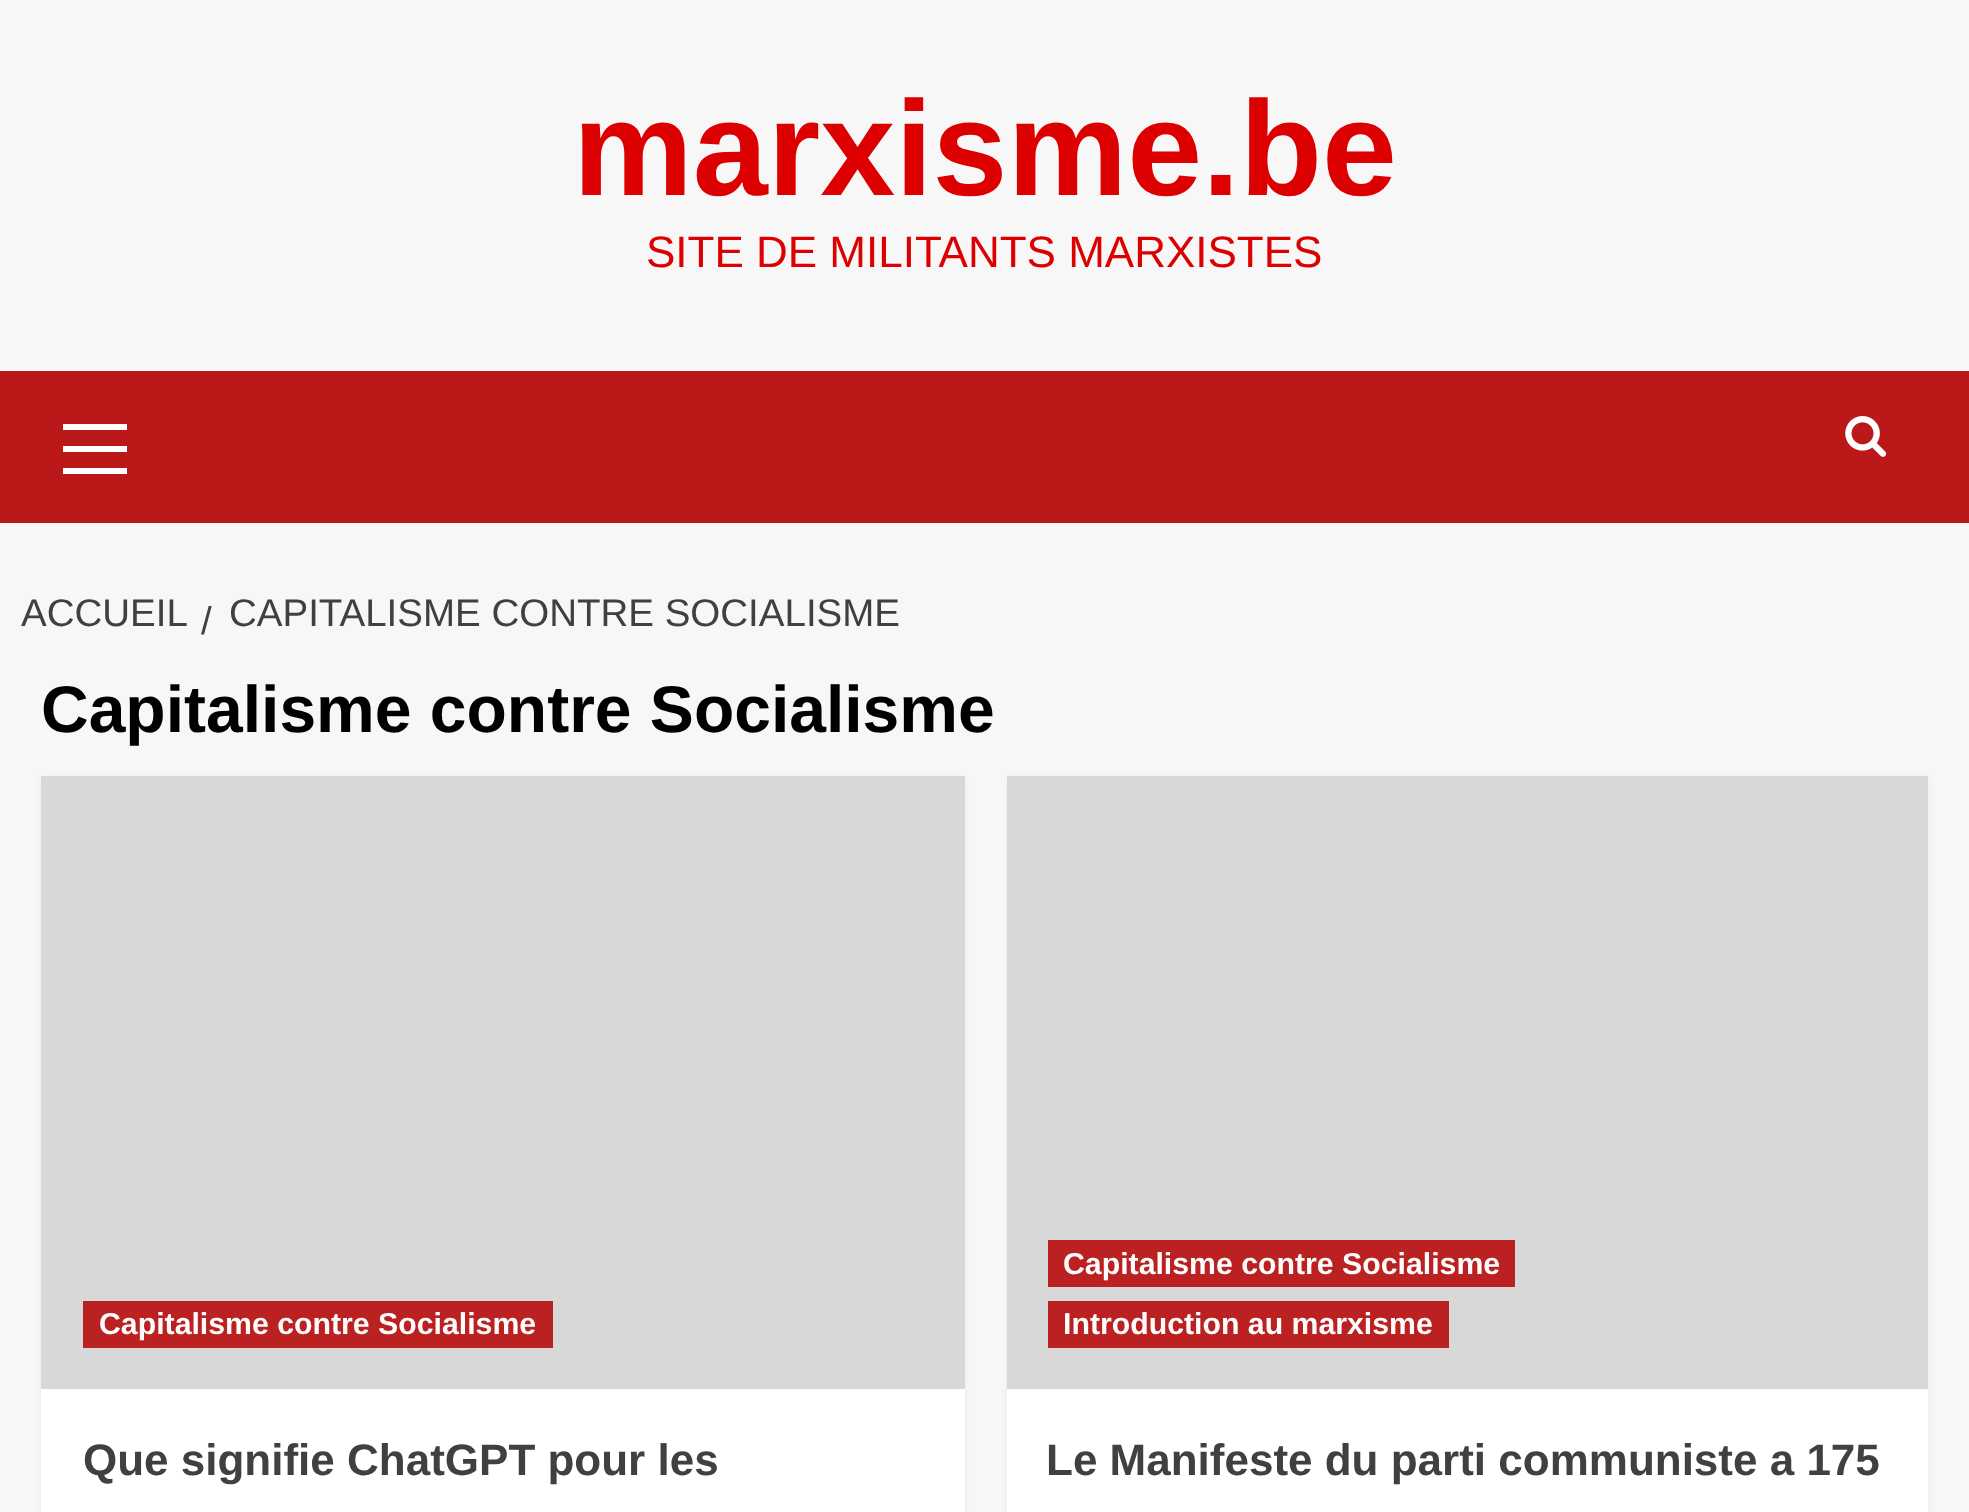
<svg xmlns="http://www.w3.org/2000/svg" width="1969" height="1512">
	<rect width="100%" height="100%" fill="#F7F7F7" />
	<text x="573" y="195" font-family="Liberation Sans" font-size="134.75" font-weight="700" fill="#DD0000">marxisme.be</text>
	<text x="646" y="267" font-family="Liberation Sans" font-size="44" fill="#DD0000">SITE DE MILITANTS MARXISTES</text>
	<rect x="0" y="371" width="1969" height="152" fill="#BB1919" />
	<rect x="63" y="446" width="64" height="6" fill="#FFFFFF" />
	<rect x="63" y="424" width="64" height="6" fill="#FFFFFF" />
	<rect x="63" y="468" width="64" height="6" fill="#FFFFFF" />
	<image x="1845" y="416" width="42" height="41" href="assets/img1.png" />
	<g font-family="Liberation Sans" font-size="38.5" fill="#404040">
		<text x="21" y="626">ACCUEIL</text>
		<text x="201" y="634">/</text>
		<text x="229" y="626">CAPITALISME CONTRE SOCIALISME</text>
	</g>
	<text x="41" y="732" font-family="Liberation Sans" font-size="66" font-weight="700" fill="#000000">Capitalisme contre Socialisme</text>
	<rect x="41" y="778" width="924" height="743" fill="#000000" fill-opacity="0.05" filter="blur(3px)" />
	<rect x="41" y="1389" width="924" height="123" fill="#FFFFFF" />
	<rect x="41" y="776" width="924" height="613" fill="#D8D8D8" />
	<rect x="83" y="1301" width="470" height="47" fill="#BC2121" />
	<text x="99" y="1334" font-family="Liberation Sans" font-size="30.25" font-weight="700" fill="#FDFDFD">Capitalisme contre Socialisme</text>
	<text x="83" y="1475" font-family="Liberation Sans" font-size="44" font-weight="700" fill="#404040">Que signifie ChatGPT pour les</text>
	<rect x="1007" y="778" width="921" height="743" fill="#000000" fill-opacity="0.05" filter="blur(3px)" />
	<rect x="1007" y="1389" width="921" height="123" fill="#FFFFFF" />
	<rect x="1007" y="776" width="921" height="613" fill="#D8D8D8" />
	<rect x="1048" y="1240" width="467" height="47" fill="#BC2121" />
	<text x="1063" y="1274" font-family="Liberation Sans" font-size="30.25" font-weight="700" fill="#FDFDFD">Capitalisme contre Socialisme</text>
	<rect x="1048" y="1301" width="401" height="47" fill="#BC2121" />
	<text x="1063" y="1334" font-family="Liberation Sans" font-size="30.25" font-weight="700" fill="#FDFDFD">Introduction au marxisme</text>
	<text x="1046" y="1475" font-family="Liberation Sans" font-size="44" font-weight="700" fill="#404040">Le Manifeste du parti communiste a 175</text>
</svg>
